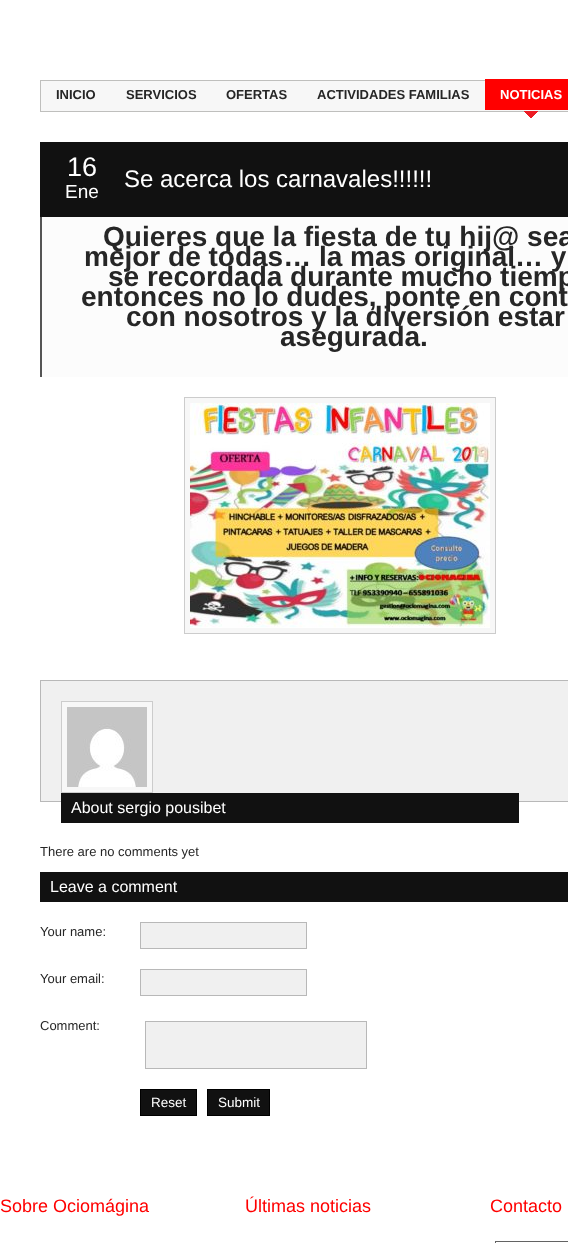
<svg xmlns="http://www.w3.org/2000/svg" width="568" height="1243">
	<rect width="100%" height="100%" fill="#FFFFFF" />
	<rect x="40.5" y="80.5" width="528" height="31" fill="#F7F7F7" stroke="#BFBFBD" />
	<g font-family="Liberation Sans" font-size="13" font-weight="700" fill="#262626">
		<text x="56" y="99">INICIO</text>
		<text x="126" y="99">SERVICIOS</text>
		<text x="226" y="99">OFERTAS</text>
		<text x="317" y="99">ACTIVIDADES FAMILIAS</text>
	</g>
	<image x="524" y="111" width="14" height="7" href="assets/img1.png" />
	<rect x="485" y="79" width="83" height="31" fill="#FF0000" />
	<text x="500" y="99" font-family="Liberation Sans" font-size="13" font-weight="700" fill="#FFFFFF">NOTICIAS</text>
	<rect x="40" y="142" width="528" height="75" fill="#111111" />
	<text x="67" y="176" font-family="Liberation Sans" font-size="27" fill="#FFFFFF">16</text>
	<text x="65" y="198" font-family="Liberation Sans" font-size="19" fill="#FFFFFF">Ene</text>
	<text x="124" y="187" font-family="Liberation Sans" font-size="24" fill="#FFFFFF">Se acerca los carnavales!!!!!!</text>
	<rect x="42" y="217" width="526" height="160" fill="#FCFCFC" />
	<rect x="40" y="217" width="2" height="160" fill="#555555" />
	<g font-family="Liberation Sans" font-size="28" font-weight="700" fill="#262626">
		<text x="103" y="246">Quieres que la fiesta de tu hij@ sea</text>
		<text x="84" y="266">mejor de todas… la mas original… y</text>
		<text x="108" y="286">se recordada durante mucho tiemp</text>
		<text x="81" y="306">entonces no lo dudes, ponte en cont</text>
		<text x="126" y="326">con nosotros y la diversión estar</text>
		<text x="280" y="346">asegurada.</text>
	</g>
	<rect x="184.5" y="397.5" width="311" height="236" fill="#F7F7F7" stroke="#CCCCCC" />
	<image x="190" y="403" width="300" height="225" href="assets/img2.png" />
	<rect x="40.5" y="680.5" width="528" height="121" fill="#F0F0F0" stroke="#B8B8B8" />
	<rect x="61.5" y="701.5" width="91" height="91" fill="#F7F7F7" stroke="#CCCCCC" />
	<image x="67" y="707" width="80" height="80" href="assets/img3.png" />
	<rect x="61" y="793" width="458" height="30" fill="#111111" />
	<text x="71" y="813" font-family="Liberation Sans" font-size="16" fill="#FFFFFF">About sergio pousibet</text>
	<text x="40" y="856" font-family="Liberation Sans" font-size="13" fill="#262626">There are no comments yet</text>
	<rect x="40" y="872" width="528" height="30" fill="#111111" />
	<text x="50" y="892" font-family="Liberation Sans" font-size="16" fill="#FFFFFF">Leave a comment</text>
	<text x="40" y="936" font-family="Liberation Sans" font-size="13" fill="#262626">Your name:</text>
	<rect x="140.5" y="922.5" width="166" height="26" fill="#F0F0F0" stroke="#B8B8B8" />
	<text x="40" y="983" font-family="Liberation Sans" font-size="13" fill="#262626">Your email:</text>
	<rect x="140.5" y="969.5" width="166" height="26" fill="#F0F0F0" stroke="#B8B8B8" />
	<text x="40" y="1030" font-family="Liberation Sans" font-size="13" fill="#262626">Comment:</text>
	<rect x="145.5" y="1021.5" width="221" height="47" fill="#F0F0F0" stroke="#B8B8B8" />
	<rect x="140.5" y="1089.5" width="56" height="26" fill="#111111" stroke="#000000" />
	<text x="151" y="1107" font-family="Liberation Sans" font-size="13.5" fill="#FFFFFF">Reset</text>
	<rect x="207.5" y="1089.5" width="62" height="26" fill="#111111" stroke="#000000" />
	<text x="218" y="1107" font-family="Liberation Sans" font-size="13.5" fill="#FFFFFF">Submit</text>
	<g font-family="Liberation Sans" font-size="18" fill="#FF0000">
		<text x="0" y="1212">Sobre Ociomágina</text>
		<text x="245" y="1212">Últimas noticias</text>
		<text x="490" y="1212">Contacto</text>
	</g>
	<rect x="495.5" y="1241.5" width="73" height="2" fill="none" stroke="#636363" />
</svg>
